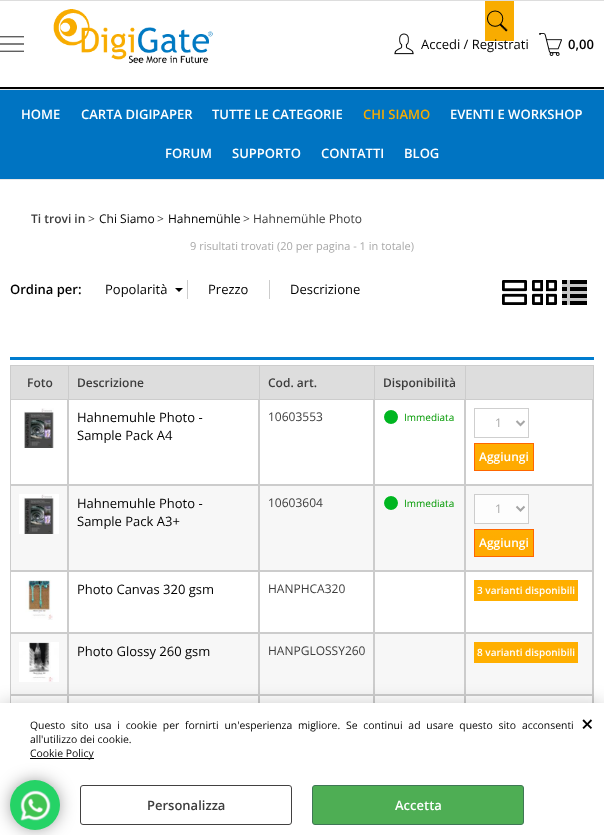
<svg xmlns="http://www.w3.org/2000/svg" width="604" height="835">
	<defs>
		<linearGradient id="g1" gradientUnits="userSpaceOnUse" x1="504" y1="444" x2="504" y2="470"><stop offset="0" stop-color="#FFAE00" /><stop offset="1" stop-color="#FFA900" /></linearGradient>
		<linearGradient id="g2" gradientUnits="userSpaceOnUse" x1="504" y1="530" x2="504" y2="556"><stop offset="0" stop-color="#FFAE00" /><stop offset="1" stop-color="#FFA900" /></linearGradient>
	</defs>
	<rect width="100%" height="100%" fill="#FFFFFF" />
	<rect x="0" y="0" width="604" height="1" fill="#DDDDDD" />
	<rect x="0" y="87" width="604" height="2" fill="#000000" />
	<image x="0" y="36" width="24" height="16" href="assets/img1.png" />
	<image x="53" y="9" width="160" height="55" href="assets/img2.png" />
	<rect x="485" y="1" width="29" height="40" fill="#F8AC00" />
	<image x="487" y="10" width="21" height="22" href="assets/img3.png" />
	<image x="394" y="33" width="20" height="22" href="assets/img4.png" />
	<text x="421" y="49" font-family="Open Sans" font-size="13" fill="#000000">Accedi / Registrati</text>
	<image x="539" y="33" width="23" height="23" href="assets/img5.png" />
	<text x="568" y="49" font-family="Open Sans" font-size="13" font-weight="600" fill="#000000">0,00</text>
	<rect x="0" y="90" width="604" height="89" fill="#0074C2" />
	<rect x="0" y="89" width="604" height="1" fill="#E9E9E9" />
	<rect x="0" y="179" width="604" height="1" fill="#E9E9E9" />
	<g font-family="Open Sans" font-size="13" font-weight="600" fill="#FFFFFF">
		<text x="21" y="119">HOME</text>
		<text x="81" y="119">CARTA DIGIPAPER</text>
		<text x="212" y="119">TUTTE LE CATEGORIE</text>
	</g>
	<text x="363" y="119" font-family="Open Sans" font-size="13" font-weight="600" fill="#F7AC00">CHI SIAMO</text>
	<g font-family="Open Sans" font-size="13" font-weight="600" fill="#FFFFFF">
		<text x="450" y="119">EVENTI E WORKSHOP</text>
		<text x="165" y="158">FORUM</text>
		<text x="232" y="158">SUPPORTO</text>
		<text x="321" y="158">CONTATTI</text>
		<text x="404" y="158">BLOG</text>
	</g>
	<text x="31" y="223" font-family="Open Sans" font-size="12" font-weight="600" fill="#3D3D3D">Ti trovi in</text>
	<text x="88" y="223" font-family="Open Sans" font-size="12" fill="#3D3D3D">&gt;</text>
	<text x="99" y="223" font-family="Open Sans" font-size="12" fill="#000000">Chi Siamo</text>
	<text x="157" y="223" font-family="Open Sans" font-size="12" fill="#3D3D3D">&gt;</text>
	<text x="168" y="223" font-family="Open Sans" font-size="12" fill="#000000">Hahnemühle</text>
	<g font-family="Open Sans" font-size="12" fill="#3D3D3D">
		<text x="243" y="223">&gt;</text>
		<text x="253" y="223">Hahnemühle Photo</text>
	</g>
	<text x="190" y="250" font-family="Open Sans" font-size="11" fill="#A9A9A9">9 risultati trovati (20 per pagina - 1 in totale)</text>
	<rect x="10" y="357" width="584" height="3" fill="#007CCF" />
	<text x="10" y="294" font-family="Open Sans" font-size="13" font-weight="600" fill="#000000">Ordina per:</text>
	<image x="175" y="288" width="8" height="4" href="assets/img6.png" />
	<rect x="187" y="280" width="1" height="19" fill="#CCCCCC" />
	<text x="105" y="294" font-family="Open Sans" font-size="13" fill="#000000">Popolarità</text>
	<rect x="269" y="280" width="1" height="19" fill="#CCCCCC" />
	<g font-family="Open Sans" font-size="13" fill="#000000">
		<text x="208" y="294">Prezzo</text>
		<text x="290" y="294">Descrizione</text>
	</g>
	<image x="502" y="280" width="25" height="25" href="assets/img7.png" />
	<image x="532" y="280" width="25" height="25" href="assets/img8.png" />
	<rect x="562" y="280" width="25" height="25" fill="#C6C6C6" />
	<image x="562" y="280" width="25" height="25" href="assets/img9.png" />
	<rect x="593" y="365" width="1" height="338" fill="#CCCCCC" />
	<rect x="11" y="366" width="57" height="33" fill="#DDDDDD" />
	<rect x="10" y="365" width="583" height="1" fill="#CCCCCC" />
	<rect x="10" y="365" width="1" height="34" fill="#CCCCCC" />
	<text x="27" y="387" font-family="Open Sans" font-size="12" font-weight="600" fill="#3D3D3D">Foto</text>
	<rect x="69" y="366" width="190" height="33" fill="#DDDDDD" />
	<rect x="68" y="365" width="1" height="34" fill="#CCCCCC" />
	<text x="77" y="387" font-family="Open Sans" font-size="12" font-weight="600" fill="#3D3D3D">Descrizione</text>
	<rect x="260" y="366" width="114" height="33" fill="#DDDDDD" />
	<rect x="259" y="365" width="1" height="34" fill="#CCCCCC" />
	<text x="268" y="387" font-family="Open Sans" font-size="12" font-weight="600" fill="#3D3D3D">Cod. art.</text>
	<rect x="375" y="366" width="90" height="33" fill="#DDDDDD" />
	<rect x="374" y="365" width="1" height="34" fill="#CCCCCC" />
	<text x="383" y="387" font-family="Open Sans" font-size="12" font-weight="600" fill="#3D3D3D">Disponibilità</text>
	<rect x="466" y="366" width="127" height="33" fill="#DDDDDD" />
	<rect x="465" y="365" width="1" height="34" fill="#CCCCCC" />
	<rect x="10.5" y="399.5" width="57" height="85" fill="none" stroke="#CCCCCC" />
	<image x="24" y="408" width="30" height="40" href="assets/img10.png" />
	<rect x="68.5" y="399.5" width="190" height="85" fill="none" stroke="#CCCCCC" />
	<g font-family="Open Sans" font-size="13" fill="#000000">
		<text x="77" y="422">Hahnemuhle Photo -</text>
		<text x="77" y="440">Sample Pack A4</text>
	</g>
	<rect x="259.5" y="399.5" width="114" height="85" fill="none" stroke="#CCCCCC" />
	<text x="268" y="421" font-family="Open Sans" font-size="12" fill="#3D3D3D">10603553</text>
	<rect x="374.5" y="399.5" width="90" height="85" fill="none" stroke="#CCCCCC" />
	<image x="384" y="410" width="14" height="14" href="assets/img11.png" />
	<text x="404" y="421" font-family="Open Sans" font-size="10" fill="#009900">Immediata</text>
	<rect x="465.5" y="399.5" width="127" height="85" fill="none" stroke="#CCCCCC" />
	<rect x="474.5" y="408.5" width="54" height="29" fill="none" stroke="#CFCFCF" />
	<path d="M516.5 421L520.5 425L524.5 421" fill="none" stroke="#A6A6A6" stroke-width="2" />
	<text x="495" y="427" font-family="Open Sans" font-size="12" fill="#A9A9A9">1</text>
	<rect x="475" y="444" width="58" height="26" fill="url(#g1)" />
	<rect x="474.5" y="443.5" width="59" height="27" fill="none" stroke="#FF6600" />
	<text x="479" y="461" font-family="Open Sans" font-size="12" font-weight="600" fill="#FFFFFF">Aggiungi</text>
	<rect x="11" y="486" width="581" height="84" fill="#F7F7F7" />
	<rect x="10.5" y="485.5" width="57" height="85" fill="none" stroke="#CCCCCC" />
	<image x="19" y="494" width="40" height="40" href="assets/img12.png" />
	<rect x="68.5" y="485.5" width="190" height="85" fill="none" stroke="#CCCCCC" />
	<g font-family="Open Sans" font-size="13" fill="#000000">
		<text x="77" y="508">Hahnemuhle Photo -</text>
		<text x="77" y="526">Sample Pack A3+</text>
	</g>
	<rect x="259.5" y="485.5" width="114" height="85" fill="none" stroke="#CCCCCC" />
	<text x="268" y="507" font-family="Open Sans" font-size="12" fill="#3D3D3D">10603604</text>
	<rect x="374.5" y="485.5" width="90" height="85" fill="none" stroke="#CCCCCC" />
	<image x="384" y="496" width="14" height="14" href="assets/img13.png" />
	<text x="404" y="507" font-family="Open Sans" font-size="10" fill="#009900">Immediata</text>
	<rect x="465.5" y="485.5" width="127" height="85" fill="none" stroke="#CCCCCC" />
	<rect x="474.5" y="494.5" width="54" height="29" fill="#FDFDFD" stroke="#CDCDCD" />
	<path d="M516.5 506.5L520.5 510.5L524.5 506.5" fill="none" stroke="#A4A4A4" stroke-width="2" />
	<text x="495" y="513" font-family="Open Sans" font-size="12" fill="#A9A9A9">1</text>
	<rect x="475" y="530" width="58" height="26" fill="url(#g2)" />
	<rect x="474.5" y="529.5" width="59" height="27" fill="none" stroke="#FF6600" />
	<text x="479" y="547" font-family="Open Sans" font-size="12" font-weight="600" fill="#FFFFFF">Aggiungi</text>
	<rect x="10.5" y="571.5" width="57" height="61" fill="none" stroke="#CCCCCC" />
	<image x="25" y="580" width="28" height="40" href="assets/img14.png" />
	<rect x="68.5" y="571.5" width="190" height="61" fill="none" stroke="#CCCCCC" />
	<text x="77" y="594" font-family="Open Sans" font-size="13" fill="#000000">Photo Canvas 320 gsm</text>
	<rect x="259.5" y="571.5" width="114" height="61" fill="none" stroke="#CCCCCC" />
	<text x="268" y="593" font-family="Open Sans" font-size="12" fill="#3D3D3D">HANPHCA320</text>
	<rect x="374.5" y="571.5" width="90" height="61" fill="none" stroke="#CCCCCC" />
	<rect x="465.5" y="571.5" width="127" height="61" fill="none" stroke="#CCCCCC" />
	<rect x="474" y="580" width="104" height="21" fill="#FFAF00" />
	<text x="477" y="594" font-family="Open Sans" font-size="10" font-weight="600" fill="#FFFFFF">3 varianti disponibili</text>
	<rect x="11" y="634" width="581" height="60" fill="#F7F7F7" />
	<rect x="10.5" y="633.5" width="57" height="61" fill="none" stroke="#CCCCCC" />
	<image x="19" y="642" width="40" height="40" href="assets/img15.png" />
	<rect x="68.5" y="633.5" width="190" height="61" fill="none" stroke="#CCCCCC" />
	<text x="77" y="656" font-family="Open Sans" font-size="13" fill="#000000">Photo Glossy 260 gsm</text>
	<rect x="259.5" y="633.5" width="114" height="61" fill="none" stroke="#CCCCCC" />
	<text x="268" y="655" font-family="Open Sans" font-size="12" fill="#3D3D3D">HANPGLOSSY260</text>
	<rect x="374.5" y="633.5" width="90" height="61" fill="none" stroke="#CCCCCC" />
	<rect x="465.5" y="633.5" width="127" height="61" fill="none" stroke="#CCCCCC" />
	<rect x="474" y="642" width="104" height="21" fill="#FFAF00" />
	<text x="477" y="656" font-family="Open Sans" font-size="10" font-weight="600" fill="#FFFFFF">8 varianti disponibili</text>
	<rect x="10.5" y="695.5" width="57" height="61" fill="none" stroke="#CCCCCC" />
	<rect x="68.5" y="695.5" width="190" height="61" fill="none" stroke="#CCCCCC" />
	<rect x="259.5" y="695.5" width="114" height="61" fill="none" stroke="#CCCCCC" />
	<rect x="374.5" y="695.5" width="90" height="61" fill="none" stroke="#CCCCCC" />
	<rect x="465.5" y="695.5" width="127" height="61" fill="none" stroke="#CCCCCC" />
	<rect x="0" y="703" width="604" height="132" fill="#000000" fill-opacity="0.2" filter="blur(9px)" />
	<rect x="0" y="703" width="604" height="132" fill="#FFFFFF" />
	<g font-family="Open Sans" font-size="10.4" fill="#000000">
		<text x="30" y="729" word-spacing="3.1">Questo sito usa i cookie per fornirti un'esperienza migliore. Se continui ad usare questo sito acconsenti</text>
		<text x="30" y="743">all'utilizzo dei cookie.</text>
	</g>
	<rect x="30" y="758" width="64" height="1" fill="#000000" />
	<text x="30" y="757" font-family="Open Sans" font-size="10.4" fill="#000000">Cookie Policy</text>
	<text x="581" y="732" font-family="Open Sans" font-size="22" font-weight="600" fill="#000000">×</text>
	<rect x="80.5" y="785.5" width="211" height="39" rx="2.5" fill="none" stroke="#424141" />
	<text x="147" y="810" font-family="Open Sans" font-size="13" font-weight="600" fill="#3D3D3D">Personalizza</text>
	<rect x="312.5" y="785.5" width="211" height="39" rx="2.5" fill="#4EAE54" stroke="#3F7755" />
	<text x="395" y="810" font-family="Open Sans" font-size="13" font-weight="600" fill="#FFFFFF">Accetta</text>
	<rect x="15" y="785" width="40" height="40" rx="20" fill="#000000" fill-opacity="0.7" filter="blur(10px)" />
	<circle cx="35" cy="805" r="25" fill="#25D366" />
	<image x="20" y="790" width="31" height="31" href="assets/img16.png" />
</svg>
